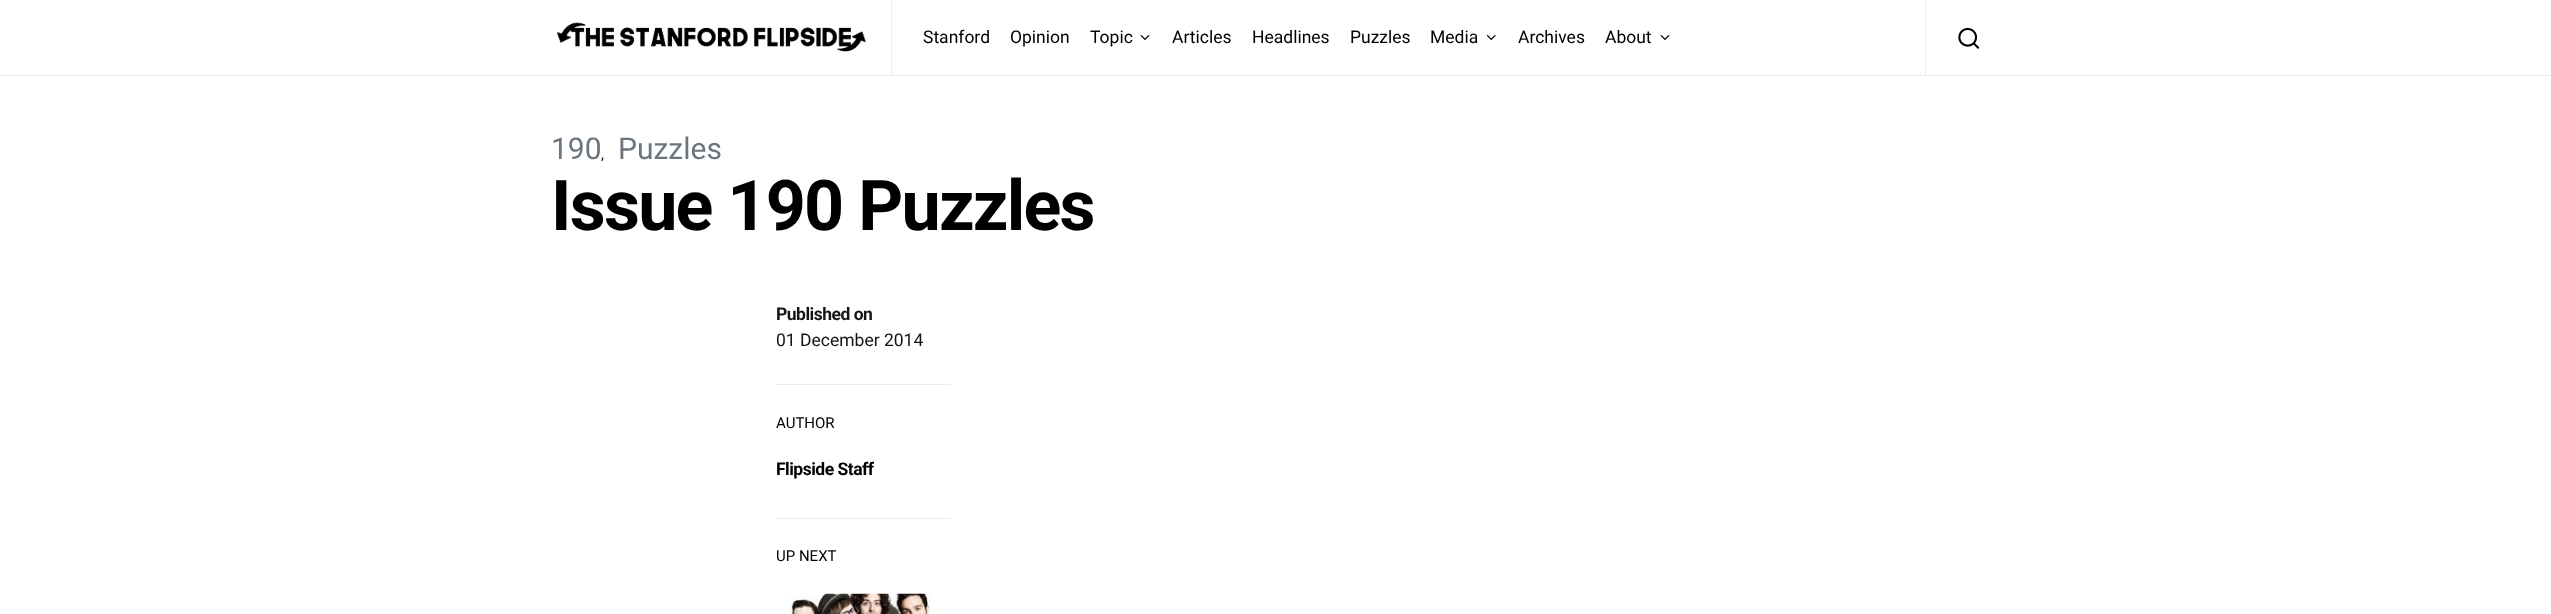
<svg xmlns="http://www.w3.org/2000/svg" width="2551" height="614">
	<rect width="100%" height="100%" fill="#FFFFFF" />
	<rect x="0" y="75" width="2551" height="1" fill="#E9ECEF" />
	<image x="556" y="22" width="310" height="30" href="assets/img1.png" />
	<rect x="891" y="0" width="1" height="75" fill="#E9ECEF" />
	<g font-family="Roboto" font-size="17.5" fill="#000000">
		<text x="923" y="43">Stanford</text>
		<text x="1010" y="43">Opinion</text>
		<text x="1090" y="43">Topic</text>
	</g>
	<image x="1140" y="35" width="10" height="5" href="assets/img2.png" />
	<g font-family="Roboto" font-size="17.5" fill="#000000">
		<text x="1172" y="43">Articles</text>
		<text x="1252" y="43">Headlines</text>
		<text x="1350" y="43">Puzzles</text>
		<text x="1430" y="43">Media</text>
	</g>
	<image x="1486" y="35" width="10" height="5" href="assets/img3.png" />
	<g font-family="Roboto" font-size="17.5" fill="#000000">
		<text x="1518" y="43">Archives</text>
		<text x="1605" y="43">About</text>
	</g>
	<image x="1660" y="35" width="10" height="5" href="assets/img2.png" />
	<rect x="1925" y="0" width="1" height="75" fill="#E9ECEF" />
	<image x="1958" y="27" width="22" height="22" href="assets/img4.png" />
	<text x="551" y="159" font-family="Roboto" font-size="30" fill="#6C757D">190</text>
	<text x="601" y="159" font-family="Roboto" font-size="15" fill="#121416">,</text>
	<text x="618" y="159" font-family="Roboto" font-size="30" fill="#6C757D">Puzzles</text>
	<text x="551" y="230" font-family="Roboto" font-size="70" font-weight="700" letter-spacing="-1.75" fill="#000000">Issue 190 Puzzles</text>
	<rect x="776" y="384" width="175" height="1" fill="#E9ECEF" />
	<text x="776" y="320" font-family="Roboto" font-size="17.5" font-weight="700" letter-spacing="-0.5" fill="#121416">Published on</text>
	<text x="776" y="346" font-family="Roboto" font-size="17.5" fill="#121416">01 December 2014</text>
	<rect x="776" y="518" width="175" height="1" fill="#E9ECEF" />
	<text x="776" y="428" font-family="Roboto" font-size="15" fill="#000000">AUTHOR</text>
	<text x="776" y="475" font-family="Roboto" font-size="17.5" font-weight="700" letter-spacing="-0.5" fill="#000000">Flipside Staff</text>
	<text x="776" y="561" font-family="Roboto" font-size="15" fill="#000000">UP NEXT</text>
	<image x="789" y="593" width="142" height="21" href="assets/img5.png" />
</svg>
